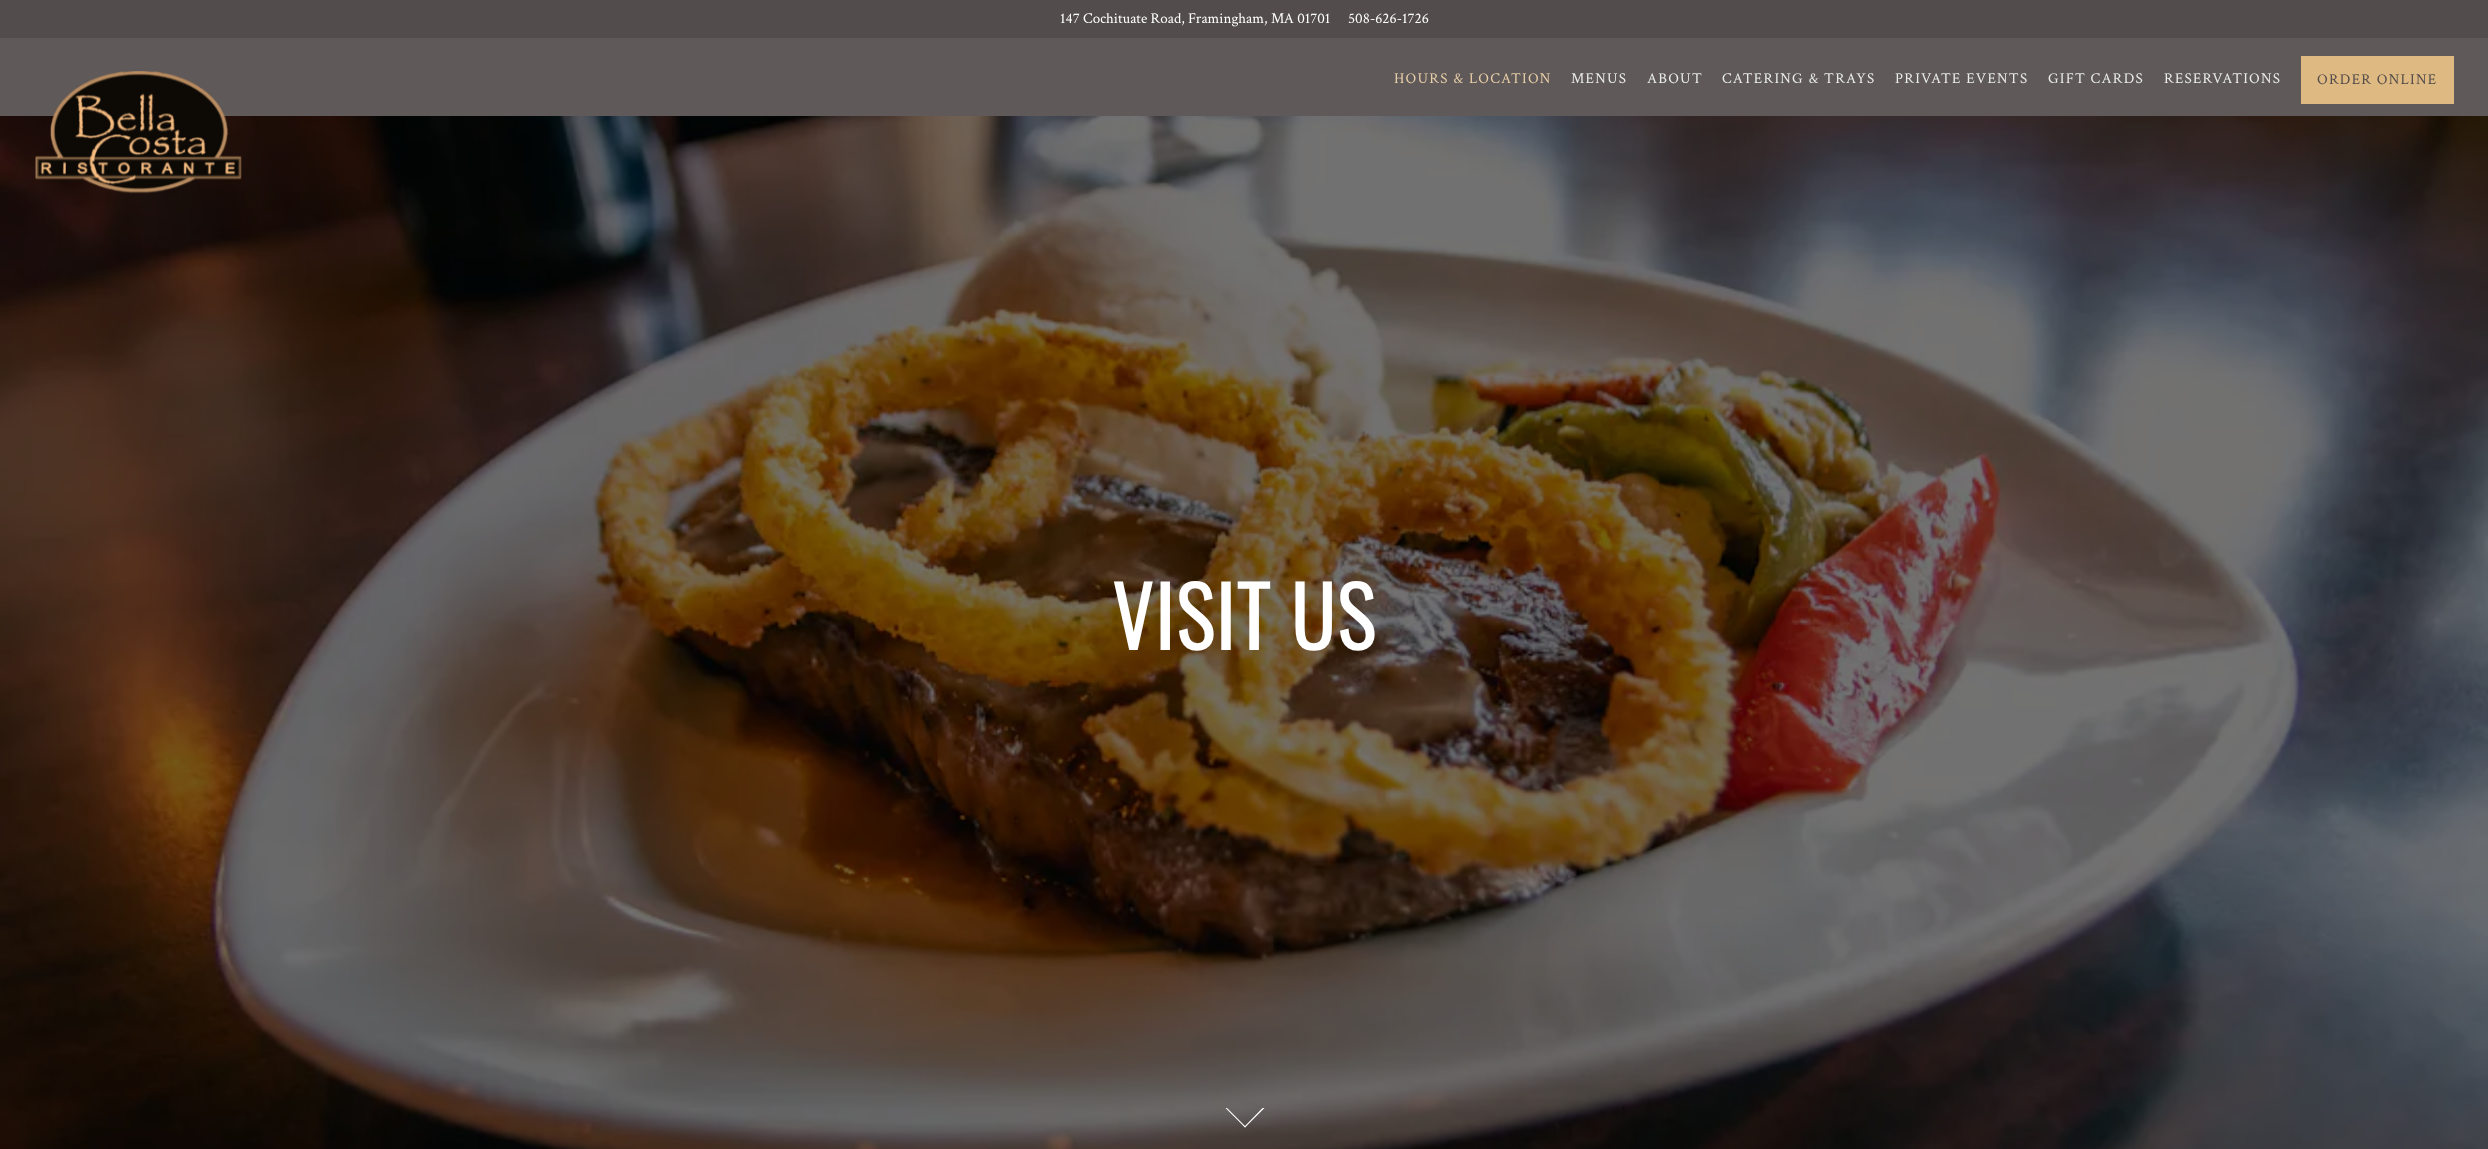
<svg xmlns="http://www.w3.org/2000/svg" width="2488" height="1149">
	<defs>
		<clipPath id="clip1"><rect x="1225" y="1108" width="40" height="20" /></clipPath>
	</defs>
	<rect width="100%" height="100%" fill="#FFFFFF" />
	<rect x="0" y="0" width="2488" height="38" fill="#524C4C" />
	<g font-family="Crimson Text" font-size="15" fill="#FFFFFF">
		<text x="1060" y="23">147 Cochituate Road, Framingham, MA 01701</text>
		<text x="1348" y="23">508-626-1726</text>
	</g>
	<rect x="0" y="38" width="2488" height="78" fill="#5F5959" />
	<image x="0" y="116" width="2488" height="1033" href="assets/img2.png" />
	<image x="35" y="71" width="207" height="123" href="assets/img1.png" />
	<text x="1394" y="83" font-family="Crimson Text" font-size="15" letter-spacing="1.25" fill="#E8CEA7">HOURS &amp; LOCATION</text>
	<g font-family="Crimson Text" font-size="15" letter-spacing="1.25" fill="#EAEBEB">
		<text x="1571" y="83">MENUS</text>
		<text x="1647" y="83">ABOUT</text>
		<text x="1722" y="83">CATERING &amp; TRAYS</text>
		<text x="1895" y="83">PRIVATE EVENTS</text>
		<text x="2048" y="83">GIFT CARDS</text>
		<text x="2164" y="83">RESERVATIONS</text>
	</g>
	<rect x="2301" y="56" width="153" height="48" fill="#DEB981" />
	<text x="2317" y="84" font-family="Crimson Text" font-size="15" letter-spacing="1.25" fill="#524C4C">ORDER ONLINE</text>
	<text x="1112" y="650" font-family="Oswald" font-size="84.5" fill="#FFFFFF">VISIT US</text>
	<g clip-path="url(#clip1)">
		<path d="M1264.5 1108L1248.5 1124C1244 1128.5 1246 1128.5 1241.5 1124L1226 1108.5C1225.5 1108 1226 1107.5 1226.5 1107.5L1245 1126L1263 1107.5C1263.5 1107.5 1264.5 1107.5 1264.5 1108Z" fill="#FFFFFF" />
	</g>
</svg>
